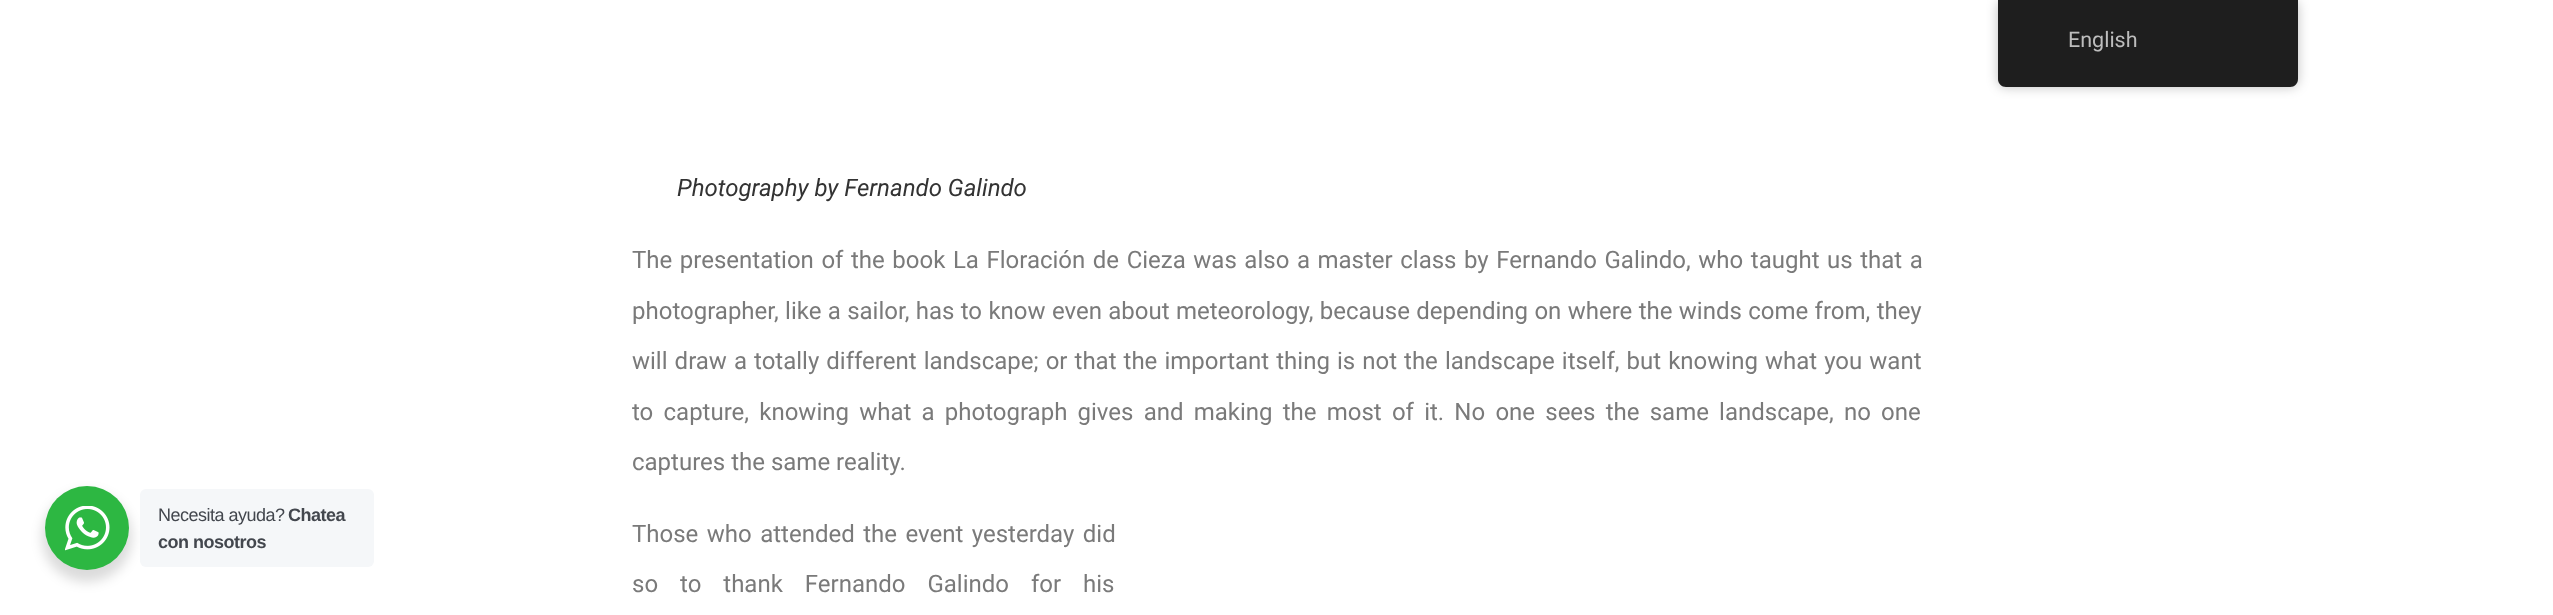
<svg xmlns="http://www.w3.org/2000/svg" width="2553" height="615">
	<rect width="100%" height="100%" fill="#FFFFFF" />
	<rect x="1998" y="0" width="300" height="87" rx="8" fill="#000000" fill-opacity="0.25" filter="blur(6px)" />
	<path d="M1998 0H2298V79C2298 83.5 2294.5 87 2290 87H2006C2001.5 87 1998 83.5 1998 79Z" fill="#1E1E1E" />
	<text x="2068" y="47" font-family="Roboto" font-size="21.5" fill="#BDBDBD">English</text>
	<rect x="42" y="492" width="90" height="90" rx="45" fill="#000000" fill-opacity="0.14" filter="blur(6px)" />
	<circle cx="87" cy="528" r="42" fill="#2DB742" />
	<image x="65" y="506" width="45" height="45" href="assets/img1.png" />
	<rect x="140" y="489" width="234" height="78" rx="6" fill="#F5F7F9" />
	<text x="158" y="521" font-family="Liberation Sans" font-size="18" letter-spacing="-0.5" fill="#43474E">Necesita ayuda?</text>
	<g font-family="Liberation Sans" font-size="18" font-weight="700" letter-spacing="-0.5" fill="#43474E">
		<text x="288" y="521">Chatea</text>
		<text x="158" y="548">con nosotros</text>
	</g>
	<text x="677" y="196" font-family="Roboto" font-size="24" font-style="italic" fill="#333333">Photography by Fernando Galindo</text>
	<g font-family="Roboto" font-size="24" fill="#7A7A7A">
		<text x="632" y="268" word-spacing="1.6">The presentation of the book La Floración de Cieza was also a master class by Fernando Galindo, who taught us that a</text>
		<text x="632" y="319" word-spacing="0.4">photographer, like a sailor, has to know even about meteorology, because depending on where the winds come from, they</text>
		<text x="632" y="369" word-spacing="1.1">will draw a totally different landscape; or that the important thing is not the landscape itself, but knowing what you want</text>
		<text x="632" y="420" word-spacing="4.25">to capture, knowing what a photograph gives and making the most of it. No one sees the same landscape, no one</text>
		<text x="632" y="470">captures the same reality.</text>
		<text x="632" y="542" word-spacing="2.5">Those who attended the event yesterday did</text>
		<text x="632" y="592" word-spacing="16">so to thank Fernando Galindo for his</text>
	</g>
</svg>
